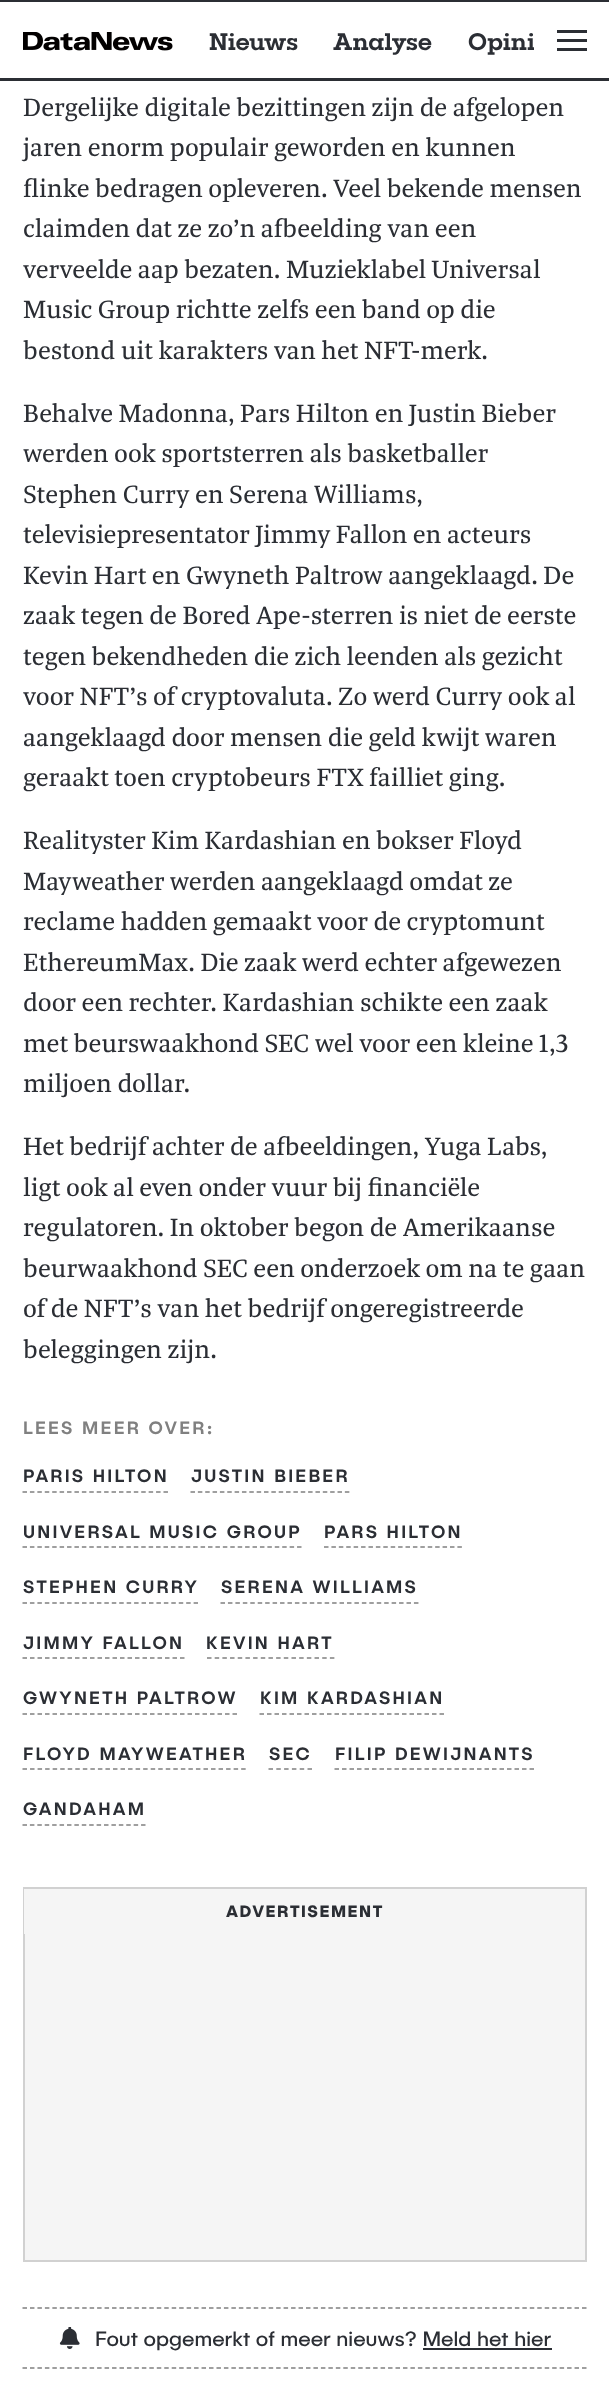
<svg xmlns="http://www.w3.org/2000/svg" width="609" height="2382">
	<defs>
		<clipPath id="clip1"><rect x="23" y="2" width="511" height="76" /></clipPath>
	</defs>
	<rect width="100%" height="100%" fill="#FFFFFF" />
	<rect x="0" y="0" width="609" height="2" fill="#2B2E34" />
	<rect x="0" y="78" width="609" height="3" fill="#2B2E34" />
	<image x="23" y="32" width="150" height="19" href="assets/img1.png" />
	<g font-family="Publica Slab" font-size="24" font-weight="500" fill="#2B2E34">
		<text x="209" y="50">Nieuws</text>
		<text x="333" y="50">Analyse</text>
	</g>
	<g clip-path="url(#clip1)">
		<text x="468" y="50" font-family="Publica Slab" font-size="24" font-weight="500" fill="#2B2E34">Opini</text>
	</g>
	<rect x="557" y="30" width="30" height="3" fill="#2B2E34" />
	<rect x="557" y="39" width="30" height="3" fill="#2B2E34" />
	<rect x="557" y="48" width="30" height="3" fill="#2B2E34" />
	<g font-family="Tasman" font-size="27" fill="#2B2E34">
		<text x="23" y="116">Dergelijke digitale bezittingen zijn de afgelopen</text>
		<text x="23" y="156">jaren enorm populair geworden en kunnen</text>
		<text x="23" y="197">flinke bedragen opleveren. Veel bekende mensen</text>
		<text x="23" y="237">claimden dat ze zo’n afbeelding van een</text>
		<text x="23" y="278">verveelde aap bezaten. Muzieklabel Universal</text>
		<text x="23" y="318">Music Group richtte zelfs een band op die</text>
		<text x="23" y="359">bestond uit karakters van het NFT-merk.</text>
		<text x="23" y="422">Behalve Madonna, Pars Hilton en Justin Bieber</text>
		<text x="23" y="462">werden ook sportsterren als basketballer</text>
		<text x="23" y="503">Stephen Curry en Serena Williams,</text>
		<text x="23" y="543">televisiepresentator Jimmy Fallon en acteurs</text>
		<text x="23" y="584">Kevin Hart en Gwyneth Paltrow aangeklaagd. De</text>
		<text x="23" y="624">zaak tegen de Bored Ape-sterren is niet de eerste</text>
		<text x="23" y="665">tegen bekendheden die zich leenden als gezicht</text>
		<text x="23" y="705">voor NFT’s of cryptovaluta. Zo werd Curry ook al</text>
		<text x="23" y="746">aangeklaagd door mensen die geld kwijt waren</text>
		<text x="23" y="786">geraakt toen cryptobeurs FTX failliet ging.</text>
		<text x="23" y="849">Realityster Kim Kardashian en bokser Floyd</text>
		<text x="23" y="890">Mayweather werden aangeklaagd omdat ze</text>
		<text x="23" y="930">reclame hadden gemaakt voor de cryptomunt</text>
		<text x="23" y="971">EthereumMax. Die zaak werd echter afgewezen</text>
		<text x="23" y="1011">door een rechter. Kardashian schikte een zaak</text>
		<text x="23" y="1052">met beurswaakhond SEC wel voor een kleine 1,3</text>
		<text x="23" y="1092">miljoen dollar.</text>
		<text x="23" y="1155">Het bedrijf achter de afbeeldingen, Yuga Labs,</text>
		<text x="23" y="1196">ligt ook al even onder vuur bij financiële</text>
		<text x="23" y="1236">regulatoren. In oktober begon de Amerikaanse</text>
		<text x="23" y="1277">beurwaakhond SEC een onderzoek om na te gaan</text>
		<text x="23" y="1317">of de NFT’s van het bedrijf ongeregistreerde</text>
		<text x="23" y="1358">beleggingen zijn.</text>
	</g>
	<text x="23" y="1434" font-family="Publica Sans" font-size="18" font-weight="500" letter-spacing="2.25" fill="#808080">LEES MEER OVER:</text>
	<path d="M22.5 1492H168" fill="none" stroke="#808080" stroke-width="1.5" stroke-dasharray="4.5 2.92" />
	<text x="23" y="1482" font-family="Publica Sans" font-size="18" font-weight="500" letter-spacing="2.25" fill="#2B2E34">PARIS HILTON</text>
	<path d="M190.5 1492H349.5" fill="none" stroke="#808080" stroke-width="1.5" stroke-dasharray="4.5 2.85" />
	<text x="191" y="1482" font-family="Publica Sans" font-size="18" font-weight="500" letter-spacing="2.25" fill="#2B2E34">JUSTIN BIEBER</text>
	<path d="M22.5 1547H301.5" fill="none" stroke="#808080" stroke-width="1.5" stroke-dasharray="4.5 2.92" />
	<text x="23" y="1538" font-family="Publica Sans" font-size="18" font-weight="500" letter-spacing="2.25" fill="#2B2E34">UNIVERSAL MUSIC GROUP</text>
	<path d="M324 1547H462" fill="none" stroke="#808080" stroke-width="1.5" stroke-dasharray="4.5 2.91" />
	<text x="324" y="1538" font-family="Publica Sans" font-size="18" font-weight="500" letter-spacing="2.25" fill="#2B2E34">PARS HILTON</text>
	<path d="M22.5 1603H198" fill="none" stroke="#808080" stroke-width="1.5" stroke-dasharray="4.5 2.94" />
	<text x="23" y="1593" font-family="Publica Sans" font-size="18" font-weight="500" letter-spacing="2.25" fill="#2B2E34">STEPHEN CURRY</text>
	<path d="M220.5 1603H418.5" fill="none" stroke="#808080" stroke-width="1.5" stroke-dasharray="4.5 2.94" />
	<text x="221" y="1593" font-family="Publica Sans" font-size="18" font-weight="500" letter-spacing="2.25" fill="#2B2E34">SERENA WILLIAMS</text>
	<path d="M22.5 1658H184.5" fill="none" stroke="#808080" stroke-width="1.5" stroke-dasharray="4.5 3" />
	<text x="23" y="1649" font-family="Publica Sans" font-size="18" font-weight="500" letter-spacing="2.25" fill="#2B2E34">JIMMY FALLON</text>
	<path d="M207 1658H334.5" fill="none" stroke="#808080" stroke-width="1.5" stroke-dasharray="4.5 3.18" />
	<text x="206" y="1649" font-family="Publica Sans" font-size="18" font-weight="500" letter-spacing="2.25" fill="#2B2E34">KEVIN HART</text>
	<path d="M22.5 1714H237" fill="none" stroke="#808080" stroke-width="1.5" stroke-dasharray="4.5 3" />
	<text x="23" y="1704" font-family="Publica Sans" font-size="18" font-weight="500" letter-spacing="2.25" fill="#2B2E34">GWYNETH PALTROW</text>
	<path d="M259.5 1714H444" fill="none" stroke="#808080" stroke-width="1.5" stroke-dasharray="4.5 3" />
	<text x="260" y="1704" font-family="Publica Sans" font-size="18" font-weight="500" letter-spacing="2.25" fill="#2B2E34">KIM KARDASHIAN</text>
	<path d="M22.5 1769H246" fill="none" stroke="#808080" stroke-width="1.5" stroke-dasharray="4.5 3.04" />
	<text x="23" y="1760" font-family="Publica Sans" font-size="18" font-weight="500" letter-spacing="2.25" fill="#2B2E34">FLOYD MAYWEATHER</text>
	<path d="M268.5 1769H312" fill="none" stroke="#808080" stroke-width="1.5" stroke-dasharray="4.5 3.3" />
	<text x="269" y="1760" font-family="Publica Sans" font-size="18" font-weight="500" letter-spacing="2.25" fill="#2B2E34">SEC</text>
	<path d="M334.5 1769H534" fill="none" stroke="#808080" stroke-width="1.5" stroke-dasharray="4.5 3" />
	<text x="335" y="1760" font-family="Publica Sans" font-size="18" font-weight="500" letter-spacing="2.25" fill="#2B2E34">FILIP DEWIJNANTS</text>
	<path d="M22.5 1825H145.5" fill="none" stroke="#808080" stroke-width="1.5" stroke-dasharray="4.5 2.91" />
	<text x="23" y="1815" font-family="Publica Sans" font-size="18" font-weight="500" letter-spacing="2.25" fill="#2B2E34">GANDAHAM</text>
	<rect x="25" y="1934" width="560" height="326" fill="#F5F5F5" />
	<rect x="24" y="1888" width="562" height="373" fill="none" stroke="#D1D1D1" stroke-width="2" />
	<rect x="24" y="1889" width="561" height="45" fill="#F5F5F5" />
	<text x="226" y="1917" font-family="Publica Sans" font-size="16.5" font-weight="700" letter-spacing="1.5" fill="#2B2E34">ADVERTISEMENT</text>
	<path d="M22.5 2308H586.5" fill="none" stroke="#808080" stroke-width="1.5" stroke-dasharray="4.5 2.96" />
	<path d="M22.5 2368H586.5" fill="none" stroke="#808080" stroke-width="1.5" stroke-dasharray="4.5 2.96" />
	<image x="59" y="2327" width="21" height="22" href="assets/img2.png" />
	<text x="95" y="2346" font-family="Publica Sans" font-size="21" fill="#2B2E34">Fout opgemerkt of meer nieuws? Meld het hier</text>
	<rect x="423" y="2348" width="129" height="2" fill="#2B2E34" />
</svg>
